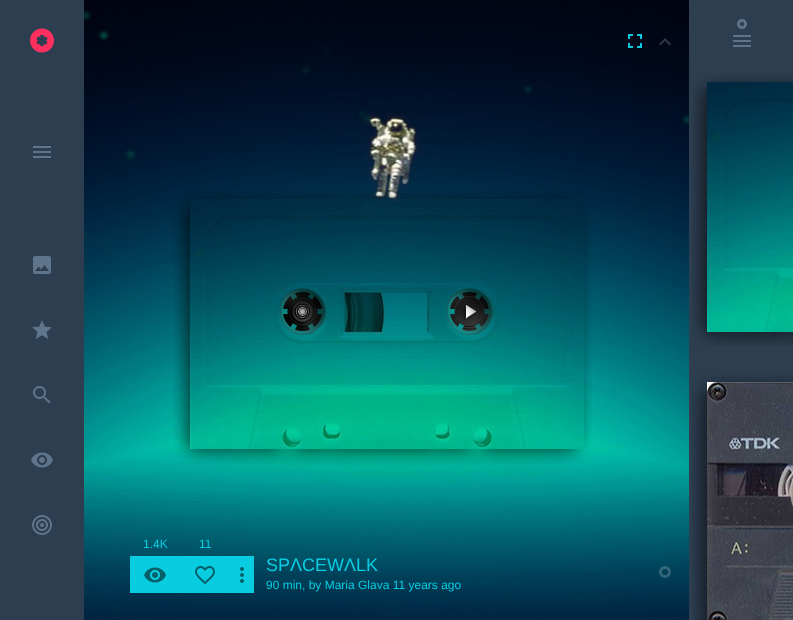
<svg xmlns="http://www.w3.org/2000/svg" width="793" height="620">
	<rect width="100%" height="100%" fill="#2C3E50" />
	<image x="30" y="28" width="24" height="25" href="assets/img1.png" />
	<image x="33" y="146" width="18" height="12" href="assets/img2.png" />
	<image x="33" y="256" width="18" height="18" href="assets/img3.png" />
	<image x="32" y="320" width="20" height="19" href="assets/img4.png" />
	<image x="33" y="386" width="18" height="18" href="assets/img5.png" />
	<image x="31" y="452" width="22" height="16" href="assets/img6.png" />
	<image x="32" y="515" width="20" height="20" href="assets/img7.png" />
	<image x="737" y="19" width="10" height="10" href="assets/img8.png" />
	<image x="733" y="35" width="18" height="12" href="assets/img2.png" />
	<image x="692" y="75" width="101" height="271" href="assets/img9.png" />
	<image x="707" y="82" width="86" height="250" href="assets/img10.png" />
	<image x="692" y="375" width="101" height="245" href="assets/img11.png" />
	<image x="707" y="382" width="86" height="238" href="assets/img12.png" />
	<image x="84" y="0" width="605" height="620" href="assets/img14.png" />
	<image x="659" y="38" width="12" height="8" href="assets/img13.png" />
	<image x="173" y="191" width="419" height="274" href="assets/img15.png" />
	<image x="190" y="199" width="394" height="250" href="assets/img16.png" />
	<image x="280" y="290" width="45" height="44" href="assets/img19.png" />
	<image x="280" y="289" width="45" height="45" href="assets/img18.png" />
	<image x="279" y="288" width="47" height="47" href="assets/img17.png" />
	<image x="448" y="291" width="41" height="41" href="assets/img22.png" />
	<image x="447" y="289" width="45" height="45" href="assets/img21.png" />
	<image x="446" y="288" width="47" height="47" href="assets/img20.png" />
	<image x="628" y="34" width="14" height="14" href="assets/img23.png" />
	<text x="143" y="548" font-family="Liberation Sans" font-size="12" fill="#08CDE0">1.4K</text>
	<rect x="130" y="556" width="124" height="36" fill="#08CDE0" />
	<image x="144" y="567" width="22" height="16" href="assets/img24.png" />
	<text x="199" y="548" font-family="Liberation Sans" font-size="12" fill="#08CDE0">11</text>
	<image x="195" y="566" width="20" height="19" href="assets/img25.png" />
	<image x="240" y="567" width="4" height="16" href="assets/img26.png" />
	<text x="266" y="571" font-family="Liberation Sans" font-size="18" fill="#08CDE0">SPΛCEWΛLK</text>
	<text x="266" y="589" font-family="Liberation Sans" font-size="12" fill="#08CDE0">90 min, by Maria Glava 11 years ago</text>
	<rect x="130" y="592" width="124" height="1" fill="#08CDE0" />
	<circle cx="665" cy="572" r="4.5" fill="none" stroke="#FFFEFF" stroke-opacity="0.2" stroke-width="3" />
</svg>
